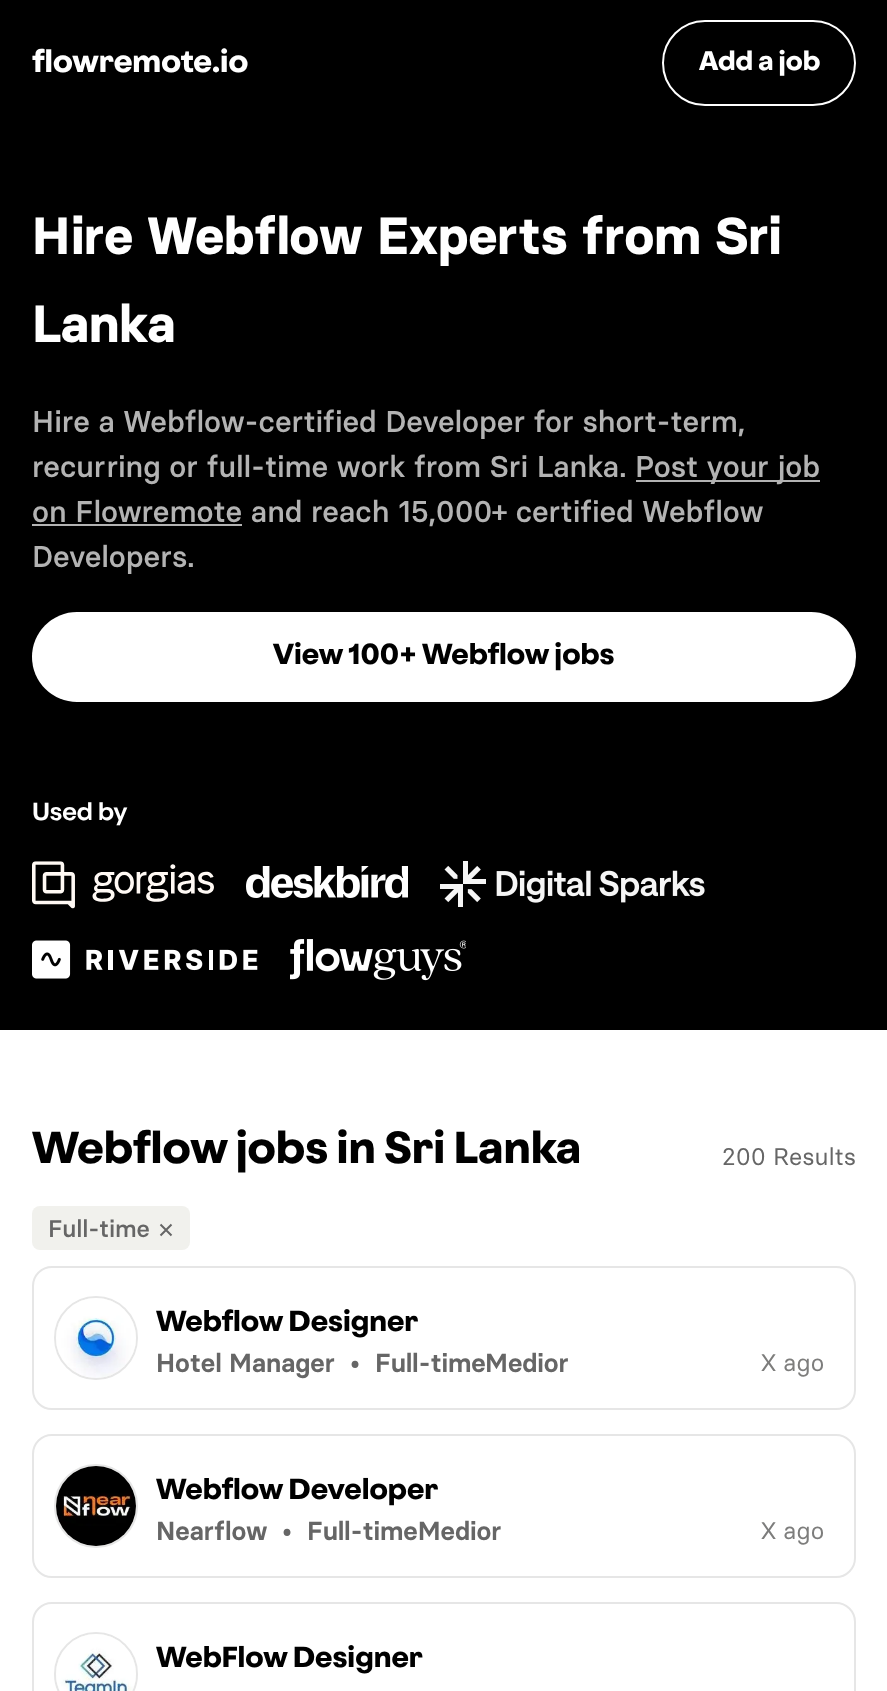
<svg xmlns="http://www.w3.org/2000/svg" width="887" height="1691">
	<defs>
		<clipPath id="clip1"><rect x="156" y="1344" width="412" height="38" /></clipPath>
	</defs>
	<rect width="100%" height="100%" fill="#000000" />
	<text x="32" y="72" font-family="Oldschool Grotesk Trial" font-size="28" font-weight="700" fill="#FFFFFF">flowremote.io</text>
	<rect x="663" y="21" width="192" height="84" rx="42" fill="none" stroke="#FFFFFF" stroke-width="2" />
	<text x="699" y="70" font-family="Oldschool Grotesk Trial" font-size="24" font-weight="700" fill="#FFFFFF">Add a job</text>
	<g font-family="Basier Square" font-size="52" font-weight="700" fill="#FFFFFF">
		<text x="32" y="254">Hire Webflow Experts from Sri</text>
		<text x="32" y="342">Lanka</text>
	</g>
	<g font-family="Basier Square" font-size="30" font-weight="500" fill="#B3B3B3">
		<text x="32" y="432">Hire a Webflow-certified Developer for short-term,</text>
		<text x="32" y="477">recurring or full-time work from Sri Lanka.</text>
	</g>
	<rect x="636" y="480" width="184" height="2" fill="#B3B3B3" />
	<text x="635" y="477" font-family="Basier Square" font-size="30" font-weight="500" fill="#B3B3B3">Post your job</text>
	<rect x="32" y="524" width="210" height="2" fill="#B3B3B3" />
	<g font-family="Basier Square" font-size="30" font-weight="500" fill="#B3B3B3">
		<text x="32" y="522">on Flowremote and reach 15,000+ certified Webflow</text>
		<text x="32" y="567">Developers.</text>
	</g>
	<rect x="32" y="612" width="824" height="90" rx="45" fill="#FFFFFF" />
	<g font-family="Oldschool Grotesk Trial" font-size="26" font-weight="700" fill="#000000">
		<text x="273" y="664">View 100+</text>
		<text x="422" y="664">Webflow jobs</text>
	</g>
	<text x="32" y="820" font-family="Oldschool Grotesk Trial" font-size="22" font-weight="500" fill="#FFFFFF">Used by</text>
	<image x="32" y="861" width="182" height="48" href="assets/img1.png" />
	<image x="246" y="866" width="162" height="32" href="assets/img2.png" />
	<image x="440" y="861" width="265" height="46" href="assets/img3.png" />
	<image x="32" y="940" width="226" height="39" href="assets/img4.png" />
	<image x="290" y="939" width="176" height="42" href="assets/img5.png" />
	<rect x="0" y="1030" width="887" height="661" fill="#FFFFFF" />
	<text x="32" y="1163" font-family="Oldschool Grotesk Trial" font-size="40" font-weight="700" fill="#000000">Webflow jobs in Sri Lanka</text>
	<text x="722" y="1165" font-family="Basier Square" font-size="24" fill="#666666">200 Results</text>
	<rect x="32" y="1206" width="158" height="44" rx="8" fill="#F1F1ED" />
	<text x="48" y="1237" font-family="Basier Square" font-size="24" font-weight="500" fill="#666666">Full-time</text>
	<path d="M171.5 1224.5L160.5 1235.5M160.5 1224.5L171.5 1235.5" fill="none" stroke="#666666" stroke-width="2" />
	<rect x="33" y="1267" width="822" height="142" rx="19" fill="none" stroke="#E6E6E6" stroke-width="2" />
	<circle cx="96" cy="1338" r="41" fill="none" stroke="#E6E6E6" stroke-width="2" />
	<circle cx="96" cy="1338" r="40" fill="#F1F1ED" />
	<image x="56" y="1298" width="80" height="80" href="assets/img6.png" />
	<text x="156" y="1331" font-family="Oldschool Grotesk Trial" font-size="26" font-weight="700" fill="#000000">Webflow Designer</text>
	<g font-family="Basier Square" font-size="26" font-weight="600" fill="#666666">
		<text x="156" y="1372">Hotel Manager</text>
		<text x="350" y="1372">•</text>
		<text x="375" y="1372">Full-time</text>
	</g>
	<g clip-path="url(#clip1)">
		<text x="485" y="1372" font-family="Basier Square" font-size="26" font-weight="600" fill="#666666">Medior</text>
	</g>
	<text x="761" y="1371" font-family="Basier Square" font-size="24" fill="#7D7D7C">X ago</text>
	<rect x="33" y="1435" width="822" height="142" rx="19" fill="none" stroke="#E6E6E6" stroke-width="2" />
	<circle cx="96" cy="1506" r="41" fill="none" stroke="#E6E6E6" stroke-width="2" />
	<circle cx="96" cy="1506" r="40" fill="#F1F1ED" />
	<image x="56" y="1466" width="80" height="80" href="assets/img7.png" />
	<text x="156" y="1499" font-family="Oldschool Grotesk Trial" font-size="26" font-weight="700" fill="#000000">Webflow Developer</text>
	<g font-family="Basier Square" font-size="26" font-weight="600" fill="#666666">
		<text x="156" y="1540">Nearflow</text>
		<text x="282" y="1540">•</text>
		<text x="307" y="1540">Full-timeMedior</text>
	</g>
	<text x="761" y="1539" font-family="Basier Square" font-size="24" fill="#7D7D7C">X ago</text>
	<rect x="33" y="1603" width="822" height="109" rx="19" fill="none" stroke="#E6E6E6" stroke-width="2" />
	<circle cx="96" cy="1674" r="41" fill="none" stroke="#E6E6E6" stroke-width="2" />
	<circle cx="96" cy="1674" r="40" fill="#F1F1ED" />
	<image x="56" y="1634" width="80" height="57" href="assets/img8.png" />
	<text x="156" y="1667" font-family="Oldschool Grotesk Trial" font-size="26" font-weight="700" fill="#000000">WebFlow Designer</text>
</svg>
